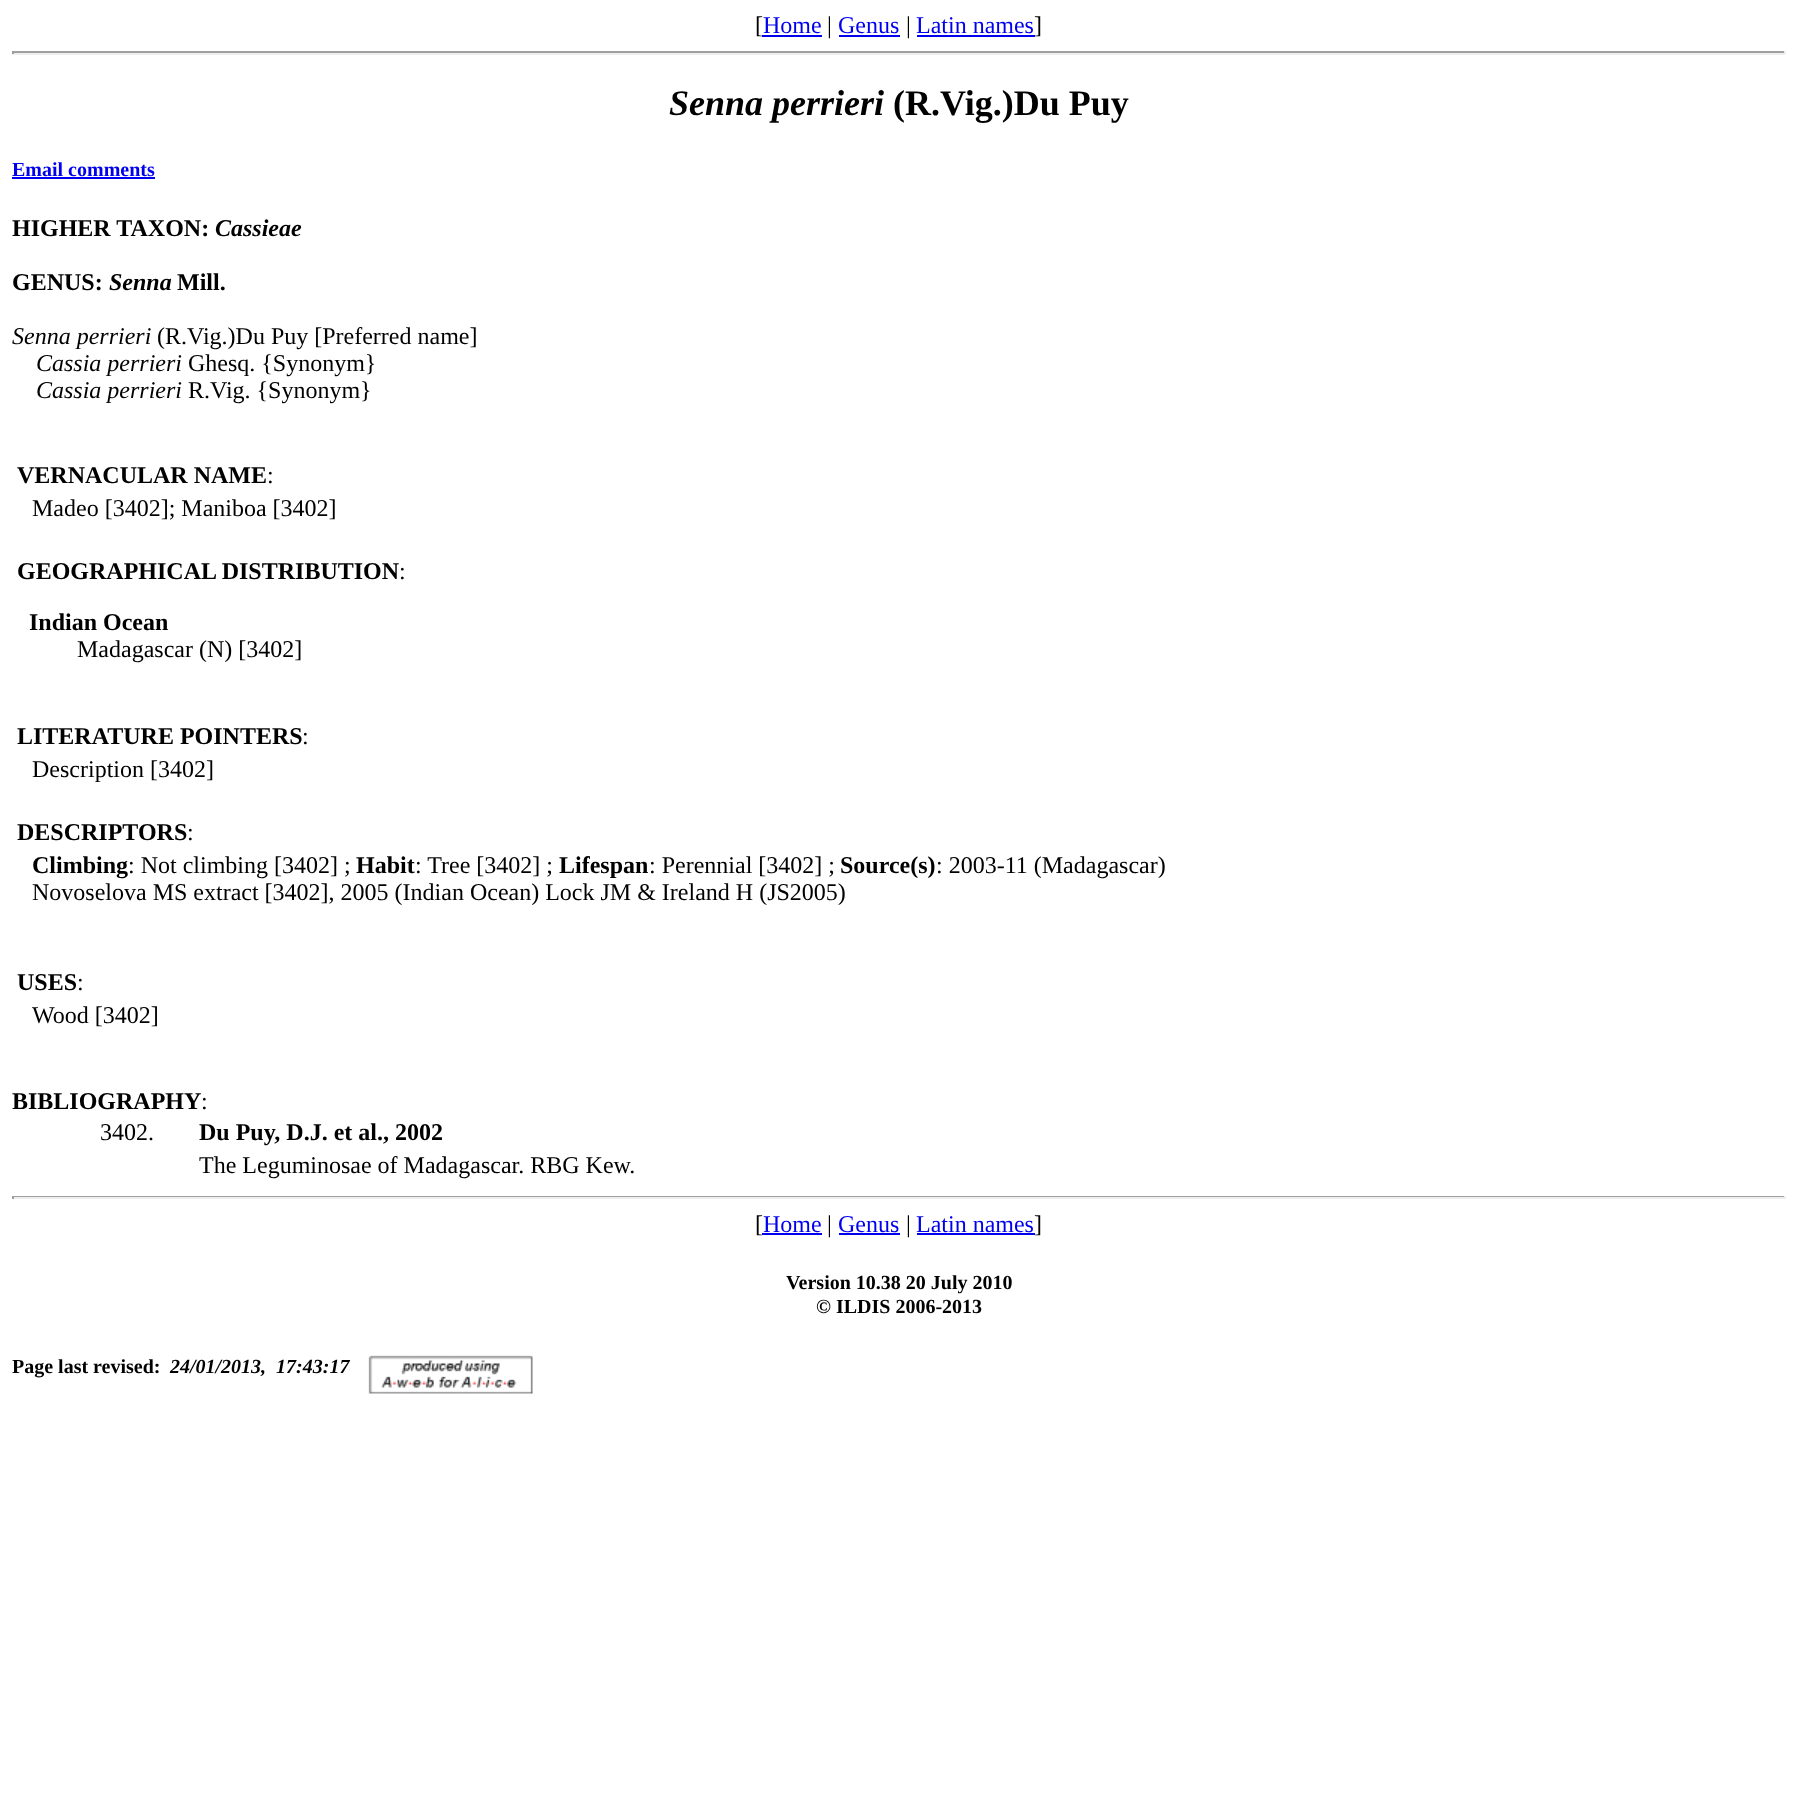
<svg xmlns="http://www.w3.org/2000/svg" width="1796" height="1815">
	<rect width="100%" height="100%" fill="#FFFFFF" />
	<text x="755" y="33" font-family="Liberation Serif" font-size="24" fill="#000000">[</text>
	<text x="763" y="33" font-family="Liberation Serif" font-size="24" fill="#0000EE">Home</text>
	<rect x="762" y="35" width="60" height="2" fill="#0000EE" />
	<text x="827" y="33" font-family="Liberation Serif" font-size="24" fill="#000000">|</text>
	<text x="838" y="33" font-family="Liberation Serif" font-size="24" fill="#0000EE">Genus</text>
	<rect x="839" y="35" width="61" height="2" fill="#0000EE" />
	<text x="906" y="33" font-family="Liberation Serif" font-size="24" fill="#000000">|</text>
	<text x="916" y="33" font-family="Liberation Serif" font-size="24" fill="#0000EE">Latin names</text>
	<rect x="917" y="35" width="118" height="2" fill="#0000EE" />
	<text x="1034" y="33" font-family="Liberation Serif" font-size="24" fill="#000000">]</text>
	<rect x="12" y="51" width="1773" height="2" fill="#9F9F9F" />
	<rect x="1784" y="51" width="2" height="3" fill="#EEEEEE" />
	<rect x="12" y="53" width="1773" height="2" fill="#EEEEEE" />
	<rect x="12" y="51" width="2" height="3" fill="#9F9F9F" />
	<text x="669" y="115" font-family="Liberation Serif" font-size="36" font-weight="700" font-style="italic" fill="#000000">Senna perrieri</text>
	<text x="893" y="115" font-family="Liberation Serif" font-size="36" font-weight="700" fill="#000000">(R.Vig.)Du Puy</text>
	<text x="12" y="176" font-family="Liberation Serif" font-size="20" font-weight="700" fill="#0000EE">Email comments</text>
	<rect x="12" y="177" width="143" height="2" fill="#0000EE" />
	<text x="12" y="236" font-family="Liberation Serif" font-size="24" font-weight="700" fill="#000000">HIGHER TAXON:</text>
	<text x="215" y="236" font-family="Liberation Serif" font-size="24" font-weight="700" font-style="italic" fill="#000000">Cassieae</text>
	<text x="12" y="290" font-family="Liberation Serif" font-size="24" font-weight="700" fill="#000000">GENUS:</text>
	<text x="109" y="290" font-family="Liberation Serif" font-size="24" font-weight="700" font-style="italic" fill="#000000">Senna</text>
	<text x="177" y="290" font-family="Liberation Serif" font-size="24" font-weight="700" fill="#000000">Mill.</text>
	<text x="12" y="344" font-family="Liberation Serif" font-size="24" font-style="italic" fill="#000000">Senna perrieri</text>
	<text x="157" y="344" font-family="Liberation Serif" font-size="24" fill="#000000">(R.Vig.)Du Puy [Preferred name]</text>
	<text x="36" y="371" font-family="Liberation Serif" font-size="24" font-style="italic" fill="#000000">Cassia perrieri</text>
	<text x="188" y="371" font-family="Liberation Serif" font-size="24" fill="#000000">Ghesq. {Synonym}</text>
	<text x="36" y="398" font-family="Liberation Serif" font-size="24" font-style="italic" fill="#000000">Cassia perrieri</text>
	<text x="188" y="398" font-family="Liberation Serif" font-size="24" fill="#000000">R.Vig. {Synonym}</text>
	<text x="17" y="483" font-family="Liberation Serif" font-size="24" font-weight="700" fill="#000000">VERNACULAR NAME</text>
	<g font-family="Liberation Serif" font-size="24" fill="#000000">
		<text x="267" y="483">:</text>
		<text x="32" y="516">Madeo [3402]; Maniboa [3402]</text>
	</g>
	<text x="17" y="579" font-family="Liberation Serif" font-size="24" font-weight="700" fill="#000000">GEOGRAPHICAL DISTRIBUTION</text>
	<text x="399" y="579" font-family="Liberation Serif" font-size="24" fill="#000000">:</text>
	<text x="29" y="630" font-family="Liberation Serif" font-size="24" font-weight="700" fill="#000000">Indian Ocean</text>
	<text x="77" y="657" font-family="Liberation Serif" font-size="24" fill="#000000">Madagascar (N) [3402]</text>
	<text x="17" y="744" font-family="Liberation Serif" font-size="24" font-weight="700" fill="#000000">LITERATURE POINTERS</text>
	<g font-family="Liberation Serif" font-size="24" fill="#000000">
		<text x="302" y="744">:</text>
		<text x="32" y="777">Description [3402]</text>
	</g>
	<text x="17" y="840" font-family="Liberation Serif" font-size="24" font-weight="700" fill="#000000">DESCRIPTORS</text>
	<text x="187" y="840" font-family="Liberation Serif" font-size="24" fill="#000000">:</text>
	<text x="32" y="873" font-family="Liberation Serif" font-size="24" font-weight="700" fill="#000000">Climbing</text>
	<text x="128" y="873" font-family="Liberation Serif" font-size="24" fill="#000000">: Not climbing [3402] ;</text>
	<text x="356" y="873" font-family="Liberation Serif" font-size="24" font-weight="700" fill="#000000">Habit</text>
	<text x="415" y="873" font-family="Liberation Serif" font-size="24" fill="#000000">: Tree [3402] ;</text>
	<text x="559" y="873" font-family="Liberation Serif" font-size="24" font-weight="700" fill="#000000">Lifespan</text>
	<text x="649" y="873" font-family="Liberation Serif" font-size="24" fill="#000000">: Perennial [3402] ;</text>
	<text x="840" y="873" font-family="Liberation Serif" font-size="24" font-weight="700" fill="#000000">Source(s)</text>
	<g font-family="Liberation Serif" font-size="24" fill="#000000">
		<text x="936" y="873">: 2003-11 (Madagascar)</text>
		<text x="32" y="900">Novoselova MS extract [3402], 2005 (Indian Ocean) Lock JM &amp; Ireland H (JS2005)</text>
	</g>
	<text x="17" y="990" font-family="Liberation Serif" font-size="24" font-weight="700" fill="#000000">USES</text>
	<g font-family="Liberation Serif" font-size="24" fill="#000000">
		<text x="77" y="990">:</text>
		<text x="32" y="1023">Wood [3402]</text>
	</g>
	<text x="12" y="1109" font-family="Liberation Serif" font-size="24" font-weight="700" fill="#000000">BIBLIOGRAPHY</text>
	<g font-family="Liberation Serif" font-size="24" fill="#000000">
		<text x="201" y="1109">:</text>
		<text x="100" y="1140">3402.</text>
	</g>
	<text x="199" y="1140" font-family="Liberation Serif" font-size="24" font-weight="700" fill="#000000">Du Puy, D.J. et al., 2002</text>
	<text x="199" y="1173" font-family="Liberation Serif" font-size="24" fill="#000000">The Leguminosae of Madagascar. RBG Kew.</text>
	<rect x="12" y="1196" width="1773" height="1" fill="#9F9F9F" />
	<rect x="1784" y="1196" width="2" height="3" fill="#EEEEEE" />
	<rect x="12" y="1197" width="1773" height="2" fill="#EEEEEE" />
	<rect x="12" y="1196" width="2" height="3" fill="#9F9F9F" />
	<text x="755" y="1232" font-family="Liberation Serif" font-size="24" fill="#000000">[</text>
	<text x="763" y="1232" font-family="Liberation Serif" font-size="24" fill="#0000EE">Home</text>
	<rect x="762" y="1233" width="60" height="2" fill="#0000EE" />
	<text x="827" y="1232" font-family="Liberation Serif" font-size="24" fill="#000000">|</text>
	<text x="838" y="1232" font-family="Liberation Serif" font-size="24" fill="#0000EE">Genus</text>
	<rect x="839" y="1233" width="61" height="2" fill="#0000EE" />
	<text x="906" y="1232" font-family="Liberation Serif" font-size="24" fill="#000000">|</text>
	<text x="916" y="1232" font-family="Liberation Serif" font-size="24" fill="#0000EE">Latin names</text>
	<rect x="917" y="1233" width="118" height="2" fill="#0000EE" />
	<text x="1034" y="1232" font-family="Liberation Serif" font-size="24" fill="#000000">]</text>
	<g font-family="Liberation Serif" font-size="20" font-weight="700" fill="#000000">
		<text x="786" y="1289">Version 10.38 20 July 2010</text>
		<text x="816" y="1313">© ILDIS 2006-2013</text>
		<text x="12" y="1373">Page last revised:</text>
	</g>
	<text x="170" y="1373" font-family="Liberation Serif" font-size="20" font-weight="700" font-style="italic" fill="#000000" xml:space="preserve">24/01/2013,  17:43:17</text>
	<image x="368" y="1355" width="165" height="39" href="assets/img1.png" />
</svg>
